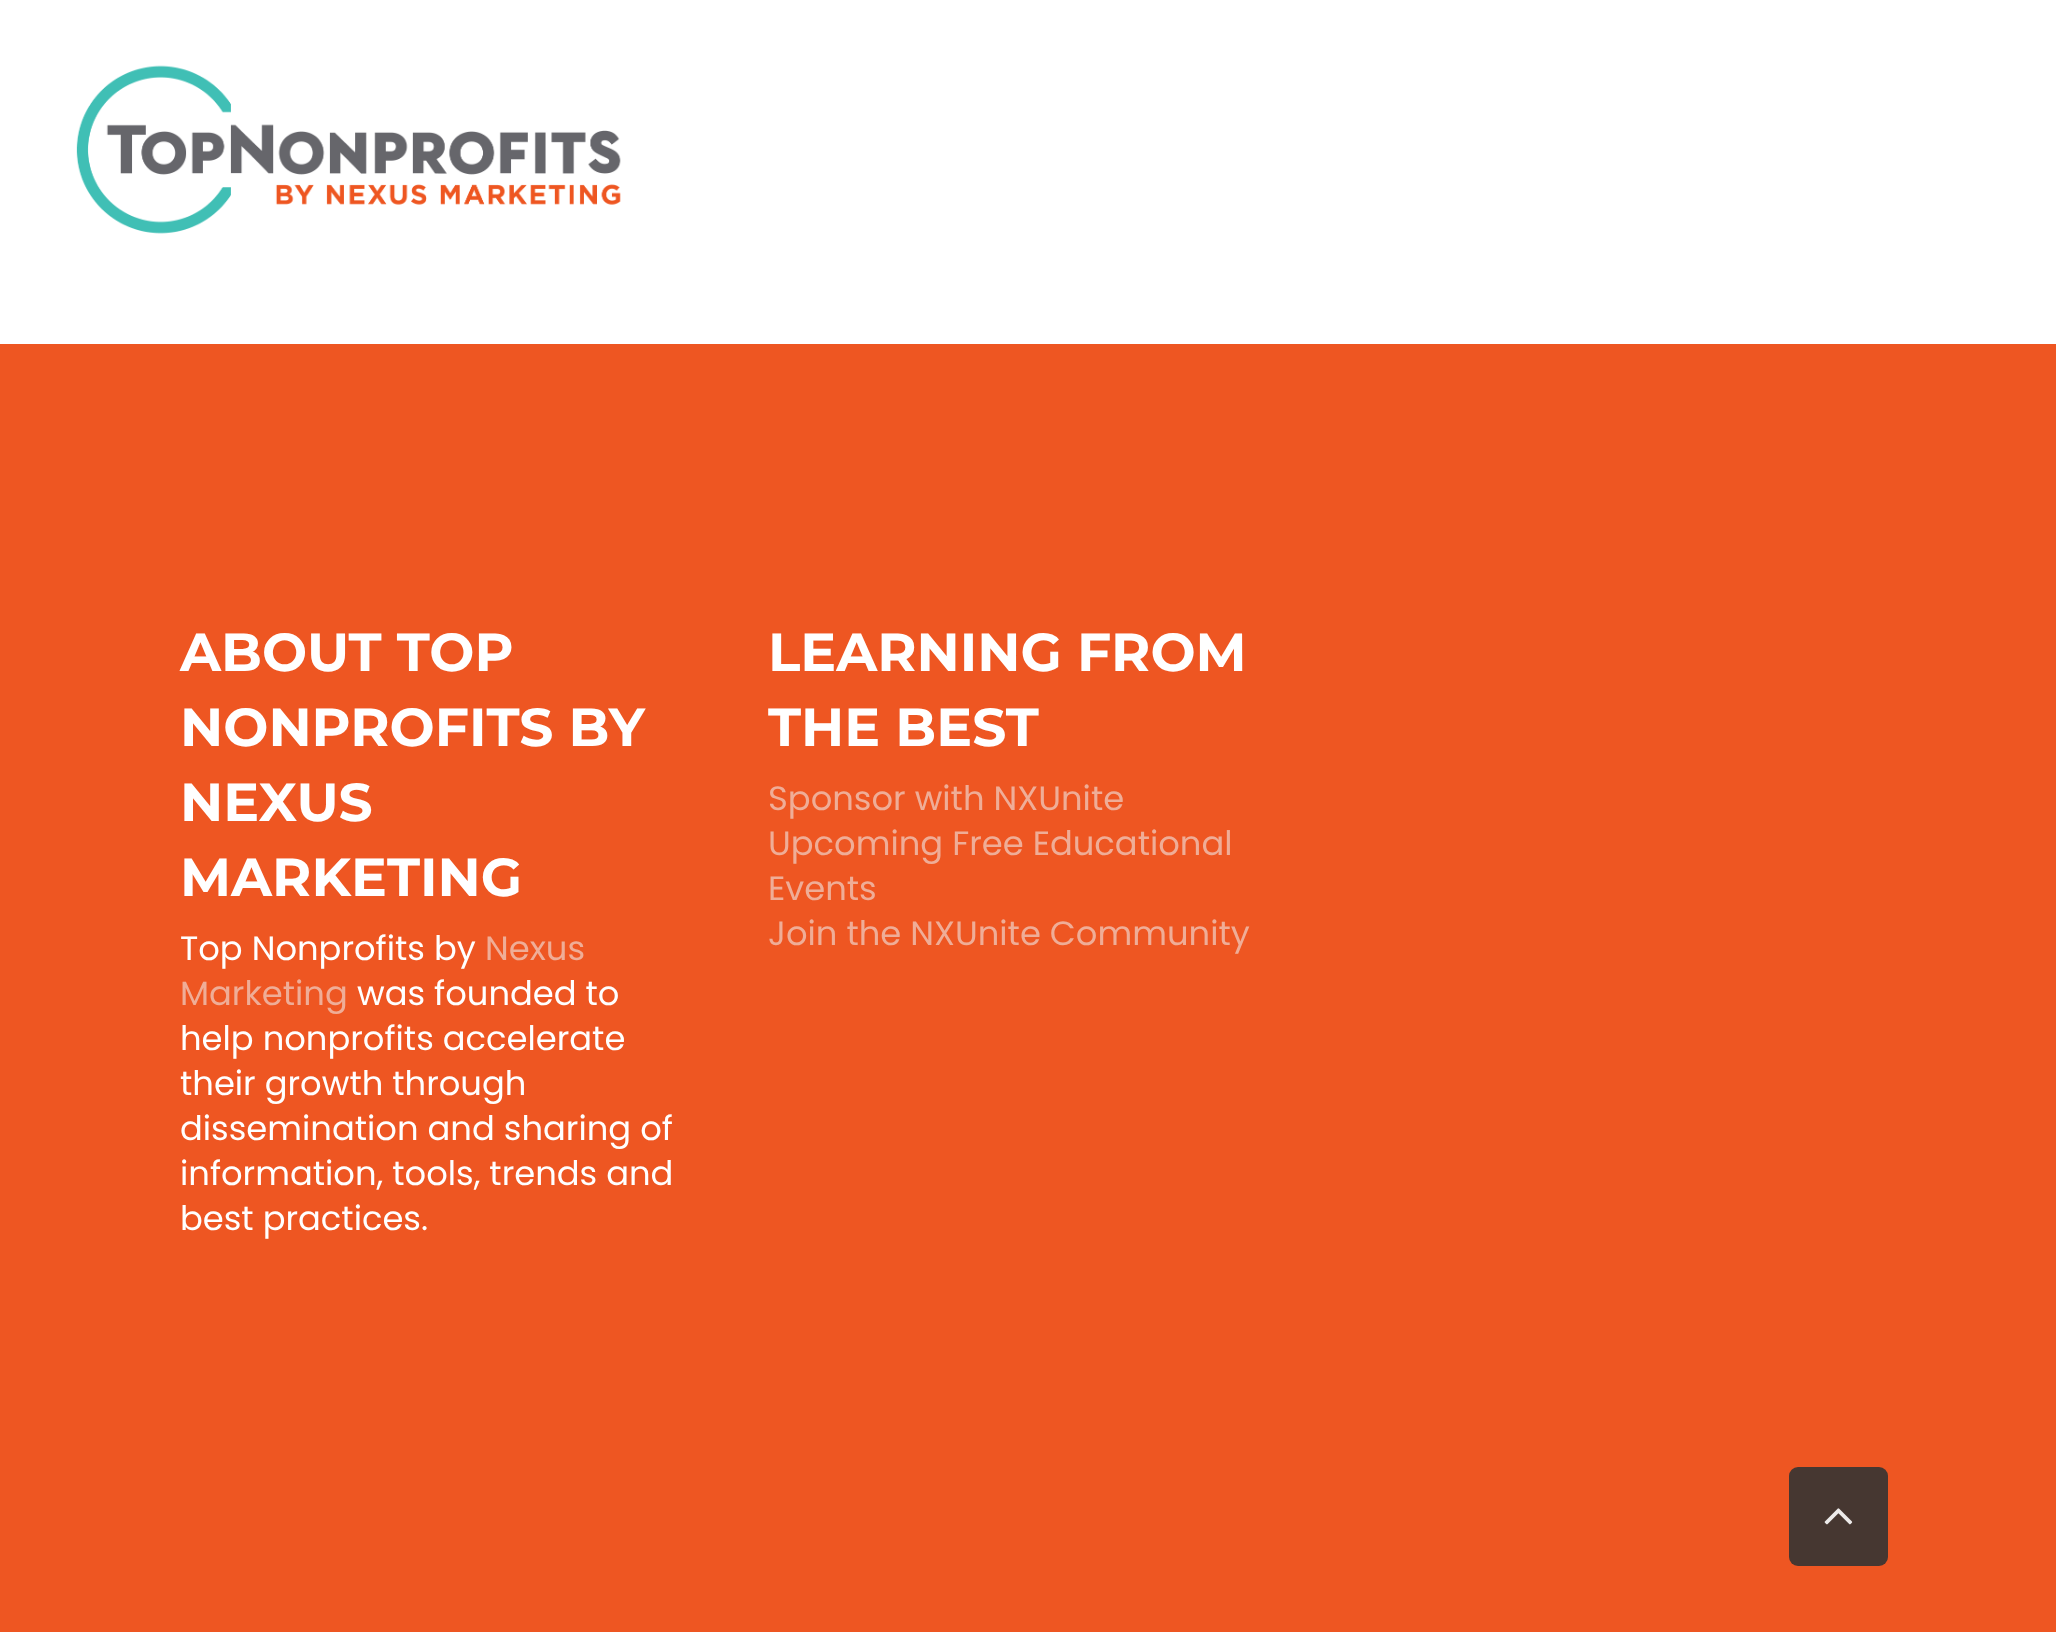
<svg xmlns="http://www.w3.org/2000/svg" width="2056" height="1632">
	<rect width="100%" height="100%" fill="#FFFFFF" />
	<image x="76" y="65" width="545" height="169" href="assets/img1.png" />
	<rect x="0" y="344" width="2056" height="1288" fill="#EE5622" />
	<g font-family="Montserrat" font-size="53.5" font-weight="100" fill="#FFFFFF">
		<text x="180" y="671">ABOUT TOP</text>
		<text x="180" y="746">NONPROFITS BY</text>
		<text x="180" y="821">NEXUS</text>
		<text x="180" y="896">MARKETING</text>
	</g>
	<text x="180" y="960" font-family="Poppins" font-size="33.75" fill="#FFFFFF">Top Nonprofits by</text>
	<g font-family="Poppins" font-size="33.75" fill="#EFAD97">
		<text x="485" y="960">Nexus</text>
		<text x="180" y="1005">Marketing</text>
	</g>
	<g font-family="Poppins" font-size="33.75" fill="#FFFFFF">
		<text x="357" y="1005">was founded to</text>
		<text x="180" y="1050">help nonprofits accelerate</text>
		<text x="180" y="1095">their growth through</text>
		<text x="180" y="1140">dissemination and sharing of</text>
		<text x="180" y="1185">information, tools, trends and</text>
		<text x="180" y="1230">best practices.</text>
	</g>
	<g font-family="Montserrat" font-size="53.5" font-weight="100" fill="#FFFFFF">
		<text x="768" y="671">LEARNING FROM</text>
		<text x="768" y="746">THE BEST</text>
	</g>
	<g font-family="Poppins" font-size="33.75" fill="#EFAD97">
		<text x="768" y="810">Sponsor with NXUnite</text>
		<text x="768" y="855">Upcoming Free Educational</text>
		<text x="768" y="900">Events</text>
		<text x="768" y="945">Join the NXUnite Community</text>
	</g>
	<rect x="1789" y="1467" width="99" height="99" rx="9" fill="#463731" />
	<image x="1824" y="1508" width="29" height="17" href="assets/img2.png" />
</svg>
